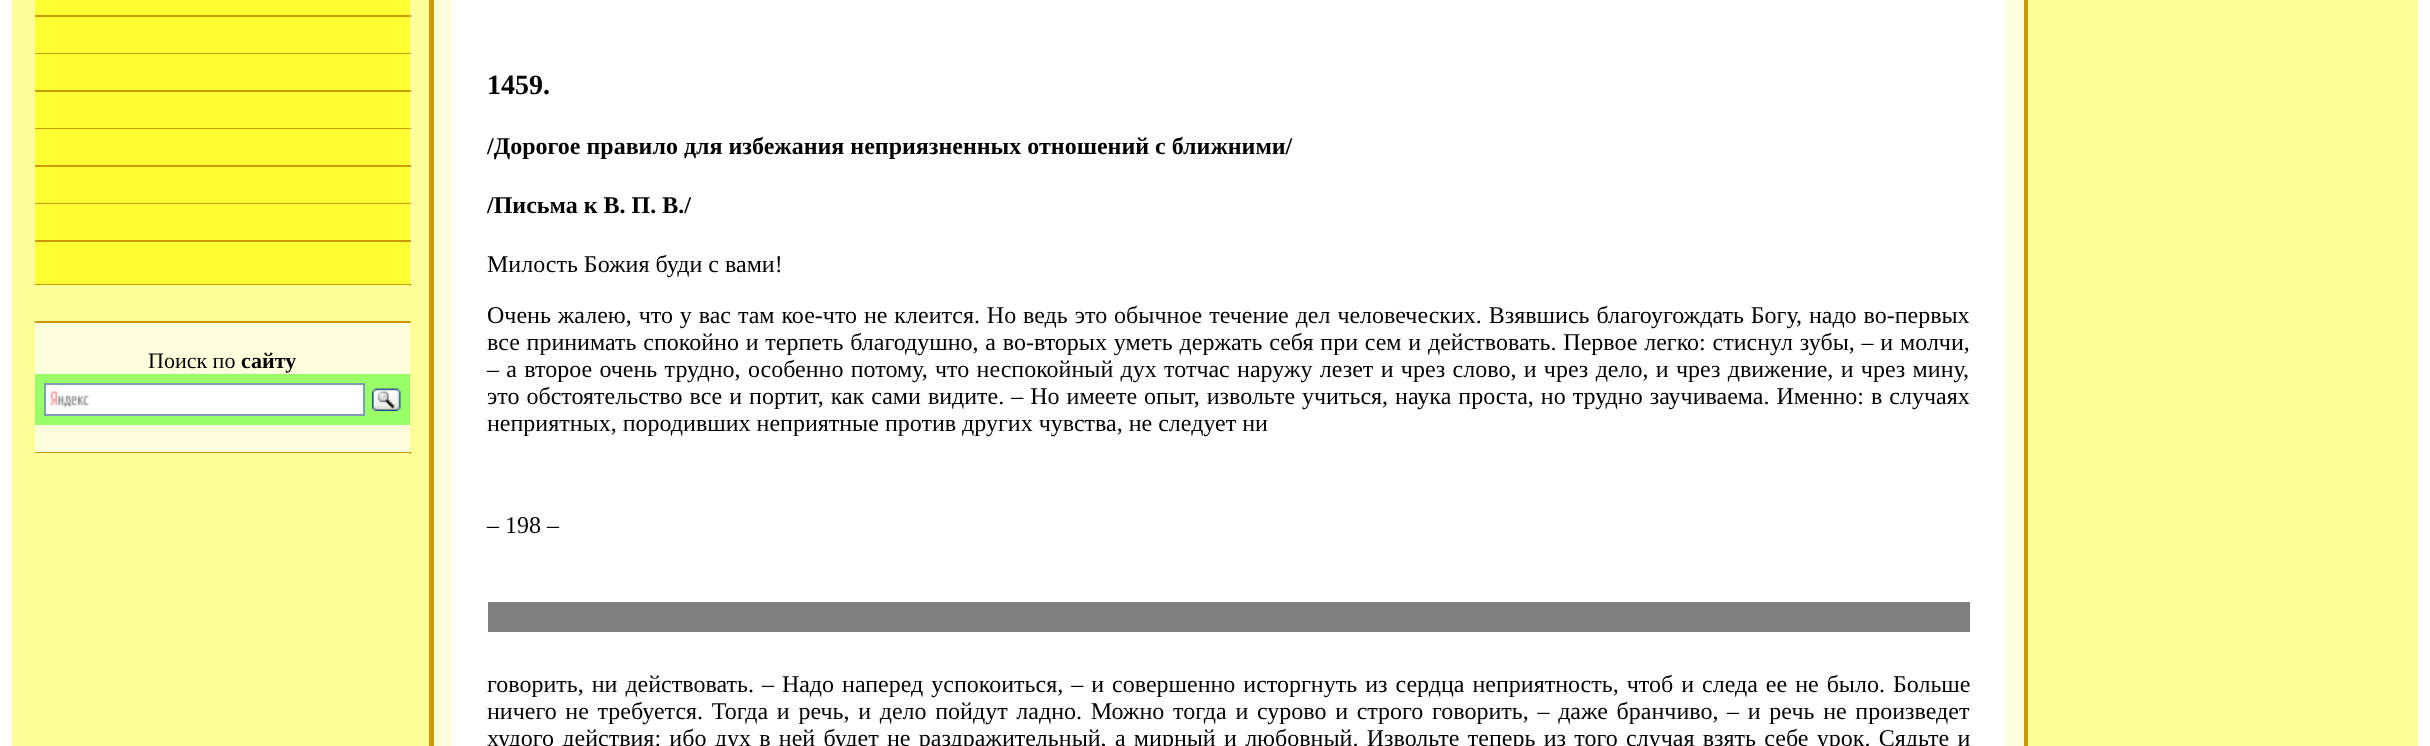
<svg xmlns="http://www.w3.org/2000/svg" width="2430" height="746">
	<rect width="100%" height="100%" fill="#FFFFFF" />
	<rect x="12" y="0" width="23" height="746" fill="#FFFF99" />
	<rect x="35" y="286" width="376" height="460" fill="#FFFF99" />
	<rect x="35" y="0" width="375" height="15" fill="#FFFF33" />
	<rect x="410" y="0" width="1" height="15" fill="#FFFF99" />
	<rect x="35" y="15" width="376" height="2" fill="#CC9900" />
	<rect x="35" y="17" width="375" height="36" fill="#FFFF33" />
	<rect x="410" y="17" width="1" height="36" fill="#FFFF99" />
	<rect x="35" y="53" width="376" height="1" fill="#CC9900" />
	<rect x="35" y="54" width="375" height="36" fill="#FFFF33" />
	<rect x="410" y="54" width="1" height="36" fill="#FFFF99" />
	<rect x="35" y="90" width="376" height="2" fill="#CC9900" />
	<rect x="35" y="92" width="375" height="36" fill="#FFFF33" />
	<rect x="410" y="92" width="1" height="36" fill="#FFFF99" />
	<rect x="35" y="128" width="376" height="1" fill="#CC9900" />
	<rect x="35" y="129" width="375" height="36" fill="#FFFF33" />
	<rect x="410" y="129" width="1" height="36" fill="#FFFF99" />
	<rect x="35" y="165" width="376" height="2" fill="#CC9900" />
	<rect x="35" y="167" width="375" height="36" fill="#FFFF33" />
	<rect x="410" y="167" width="1" height="36" fill="#FFFF99" />
	<rect x="35" y="203" width="376" height="1" fill="#CC9900" />
	<rect x="35" y="204" width="375" height="36" fill="#FFFF33" />
	<rect x="410" y="204" width="1" height="36" fill="#FFFF99" />
	<rect x="35" y="240" width="376" height="2" fill="#CC9900" />
	<rect x="35" y="242" width="375" height="42" fill="#FFFF33" />
	<rect x="410" y="242" width="1" height="42" fill="#FFFF99" />
	<rect x="35" y="284" width="376" height="2" fill="#CC9900" />
	<rect x="35" y="285" width="375" height="1" fill="#FFFF99" />
	<rect x="35" y="321" width="376" height="2" fill="#CC9900" />
	<rect x="35" y="323" width="375" height="129" fill="#FFFFDD" />
	<text x="148" y="368" font-family="Liberation Serif" font-size="22" fill="#000000">Поиск по</text>
	<text x="241" y="368" font-family="Liberation Serif" font-size="22" font-weight="700" fill="#000000">сайту</text>
	<rect x="35" y="374" width="375" height="51" fill="#99FF66" />
	<rect x="46" y="385" width="317" height="29" fill="#FFFFFF" />
	<image x="49" y="391" width="40" height="17" href="assets/img1.png" />
	<rect x="45" y="384" width="319" height="31" fill="none" stroke="#7F9DB9" stroke-width="2" />
	<image x="372" y="388" width="29" height="23" href="assets/img2.png" />
	<rect x="35" y="452" width="376" height="2" fill="#CC9900" />
	<rect x="35" y="453" width="375" height="1" fill="#FFFF99" />
	<rect x="411" y="0" width="18" height="746" fill="#FFFF99" />
	<rect x="429" y="0" width="5" height="746" fill="#CC9900" />
	<rect x="434" y="0" width="18" height="746" fill="#FFFFDD" />
	<text x="487" y="94" font-family="Liberation Serif" font-size="28" font-weight="700" fill="#000000">1459.</text>
	<g font-family="Liberation Serif" font-size="24" font-weight="700" fill="#000000">
		<text x="487" y="154">/Дорогое правило для избежания неприязненных отношений с ближними/</text>
		<text x="487" y="213">/Письма к В. П. В./</text>
	</g>
	<g font-family="Liberation Serif" font-size="24" fill="#000000">
		<text x="487" y="272">Милость Божия буди с вами!</text>
		<text x="487" y="323" word-spacing="0.9">Очень жалею, что у вас там кое-что не клеится. Но ведь это обычное течение дел человеческих. Взявшись благоугождать Богу, надо во-первых</text>
		<text x="487" y="350" word-spacing="0.8">все принимать спокойно и терпеть благодушно, а во-вторых уметь держать себя при сем и действовать. Первое легко: стиснул зубы, – и молчи,</text>
		<text x="487" y="377" word-spacing="1.3">– а второе очень трудно, особенно потому, что неспокойный дух тотчас наружу лезет и чрез слово, и чрез дело, и чрез движение, и чрез мину,</text>
		<text x="487" y="404" word-spacing="1">это обстоятельство все и портит, как сами видите. – Но имеете опыт, извольте учиться, наука проста, но трудно заучиваема. Именно: в случаях</text>
		<text x="487" y="431">неприятных, породивших неприятные против других чувства, не следует ни</text>
		<text x="487" y="533">– 198 –</text>
	</g>
	<rect x="488" y="602" width="1482" height="30" fill="#808080" />
	<g font-family="Liberation Serif" font-size="24" fill="#000000">
		<text x="487" y="692" word-spacing="2">говорить, ни действовать. – Надо наперед успокоиться, – и совершенно исторгнуть из сердца неприятность, чтоб и следа ее не было. Больше</text>
		<text x="487" y="719" word-spacing="2.7">ничего не требуется. Тогда и речь, и дело пойдут ладно. Можно тогда и сурово и строго говорить, – даже бранчиво, – и речь не произведет</text>
		<text x="487" y="746" word-spacing="2.3">худого действия: ибо дух в ней будет не раздражительный, а мирный и любовный. Извольте теперь из того случая взять себе урок. Сядьте и</text>
	</g>
	<rect x="2006" y="0" width="18" height="746" fill="#FFFFDD" />
	<rect x="2024" y="0" width="4" height="746" fill="#CC9900" />
	<rect x="2028" y="0" width="390" height="746" fill="#FFFF99" />
</svg>
